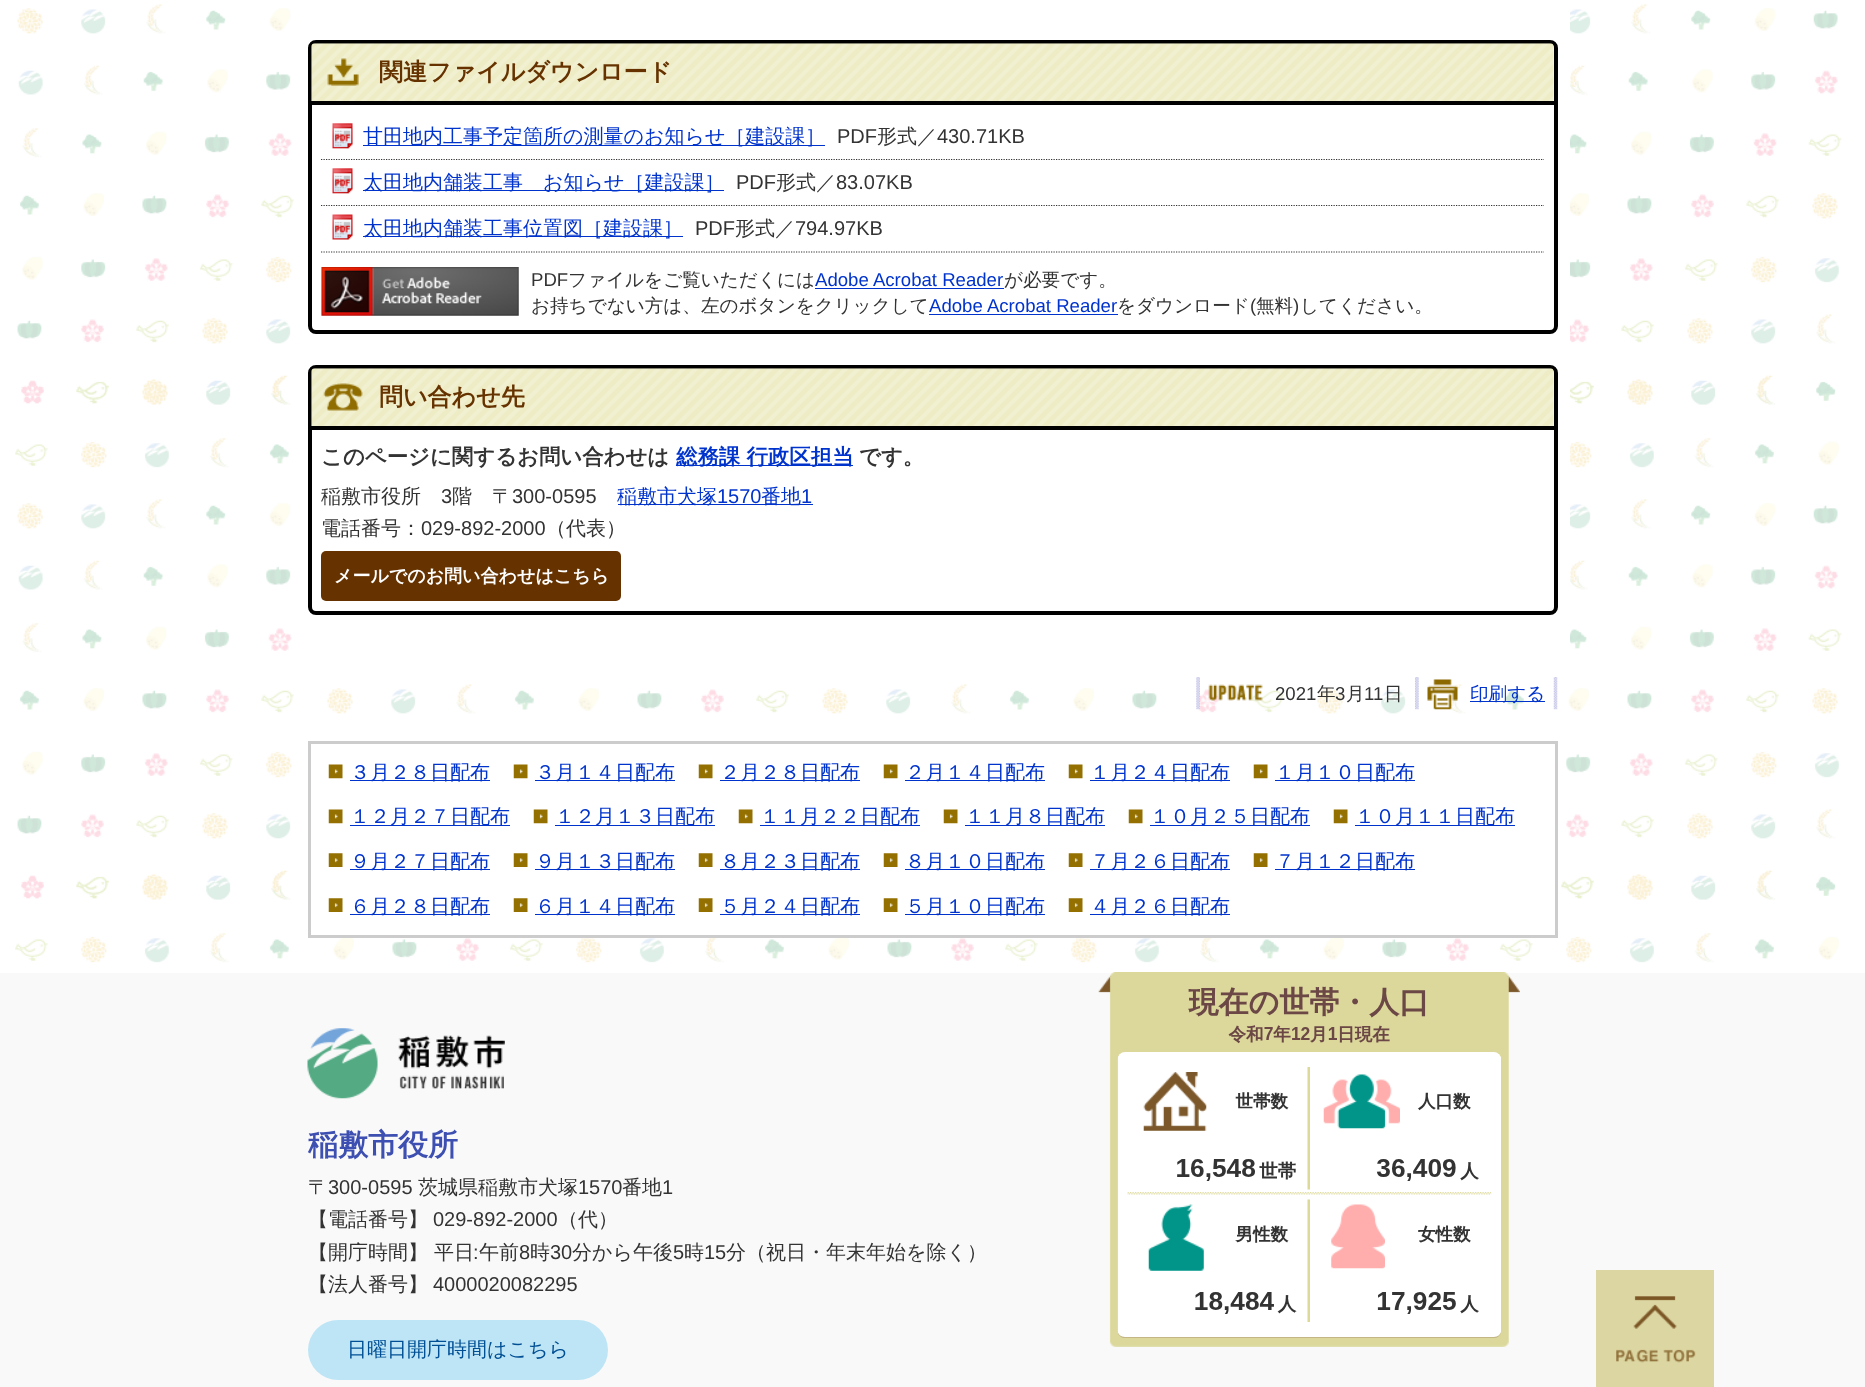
<svg xmlns="http://www.w3.org/2000/svg" width="1865" height="1387">
	<rect width="100%" height="100%" fill="#FFFFFF" />
	<image x="15" y="4" width="1827" height="969" href="assets/img1.png" />
	<rect x="323" y="4" width="1247" height="649" fill="#FFFFFF" />
	<rect x="310" y="42" width="1246" height="290" rx="6" fill="none" stroke="#000000" stroke-width="4" />
	<image x="311" y="43" width="1243" height="58" href="assets/img2.png" />
	<rect x="311" y="101" width="1243" height="4" fill="#000000" />
	<text x="379" y="80" font-family="WenQuanYi Zen Hei" font-size="24" font-weight="700" fill="#663300">関連ファイルダウンロード</text>
	<image x="332" y="123" width="21" height="26" href="assets/img3.png" />
	<path d="M321 159.5H1544" fill="none" stroke="#333333" stroke-width="1.2" stroke-dasharray="1.25 1.25" />
	<rect x="363" y="145" width="462" height="1" fill="#0033CC" />
	<text x="363" y="143" font-family="WenQuanYi Zen Hei" font-size="20" font-weight="500" fill="#0033CC">甘田地内工事予定箇所の測量のお知らせ［建設課］</text>
	<text x="837" y="143" font-family="Liberation Sans" font-size="20" fill="#333333">PDF</text>
	<text x="877" y="143" font-family="WenQuanYi Zen Hei" font-size="20" font-weight="500" fill="#333333">形式／</text>
	<text x="937" y="143" font-family="Liberation Sans" font-size="20" fill="#333333">430.71KB</text>
	<image x="332" y="168" width="21" height="26" href="assets/img3.png" />
	<path d="M321 205.5H1544" fill="none" stroke="#333333" stroke-width="1.2" stroke-dasharray="1.25 1.25" />
	<rect x="363" y="190" width="361" height="1" fill="#0033CC" />
	<text x="363" y="189" font-family="WenQuanYi Zen Hei" font-size="20" font-weight="500" fill="#0033CC">太田地内舗装工事　お知らせ［建設課］</text>
	<text x="736" y="189" font-family="Liberation Sans" font-size="20" fill="#333333">PDF</text>
	<text x="776" y="189" font-family="WenQuanYi Zen Hei" font-size="20" font-weight="500" fill="#333333">形式／</text>
	<text x="836" y="189" font-family="Liberation Sans" font-size="20" fill="#333333">83.07KB</text>
	<image x="332" y="214" width="21" height="26" href="assets/img4.png" />
	<path d="M321 252H1544" fill="none" stroke="#333333" stroke-width="1.2" stroke-dasharray="1.25 1.25" />
	<rect x="363" y="236" width="320" height="1" fill="#0033CC" />
	<text x="363" y="235" font-family="WenQuanYi Zen Hei" font-size="20" font-weight="500" fill="#0033CC">太田地内舗装工事位置図［建設課］</text>
	<text x="695" y="235" font-family="Liberation Sans" font-size="20" fill="#333333">PDF</text>
	<text x="735" y="235" font-family="WenQuanYi Zen Hei" font-size="20" font-weight="500" fill="#333333">形式／</text>
	<text x="795" y="235" font-family="Liberation Sans" font-size="20" fill="#333333">794.97KB</text>
	<image x="321" y="267" width="198" height="49" href="assets/img5.png" />
	<text x="531" y="286" font-family="Liberation Sans" font-size="18.6" fill="#333333">PDF</text>
	<text x="568" y="286" font-family="WenQuanYi Zen Hei" font-size="18.6" font-weight="500" fill="#333333">ファイルをご覧いただくには</text>
	<text x="815" y="286" font-family="Liberation Sans" font-size="18.6" fill="#0033CC">Adobe Acrobat Reader</text>
	<rect x="815" y="288" width="189" height="1" fill="#0033CC" />
	<g font-family="WenQuanYi Zen Hei" font-size="18.6" font-weight="500" fill="#333333">
		<text x="1004" y="286">が必要です。</text>
		<text x="531" y="312">お持ちでない方は、左のボタンをクリックして</text>
	</g>
	<text x="929" y="312" font-family="Liberation Sans" font-size="18.6" fill="#0033CC">Adobe Acrobat Reader</text>
	<rect x="929" y="314" width="189" height="1" fill="#0033CC" />
	<text x="1117" y="312" font-family="WenQuanYi Zen Hei" font-size="18.6" font-weight="500" fill="#333333">をダウンロード</text>
	<text x="1250" y="312" font-family="Liberation Sans" font-size="18.6" fill="#333333">(</text>
	<text x="1256" y="312" font-family="WenQuanYi Zen Hei" font-size="18.6" font-weight="500" fill="#333333">無料</text>
	<text x="1293" y="312" font-family="Liberation Sans" font-size="18.6" fill="#333333">)</text>
	<text x="1300" y="312" font-family="WenQuanYi Zen Hei" font-size="18.6" font-weight="500" fill="#333333">してください。</text>
	<rect x="310" y="367" width="1246" height="246" rx="6" fill="none" stroke="#000000" stroke-width="4" />
	<image x="311" y="368" width="1243" height="58" href="assets/img6.png" />
	<rect x="311" y="426" width="1243" height="4" fill="#000000" />
	<text x="379" y="405" font-family="WenQuanYi Zen Hei" font-size="24" font-weight="700" fill="#663300">問い合わせ先</text>
	<text x="321" y="464" font-family="WenQuanYi Zen Hei" font-size="21.4" font-weight="700" fill="#333333">このページに関するお問い合わせは</text>
	<rect x="676" y="465" width="177" height="1" fill="#0033CC" />
	<text x="676" y="464" font-family="WenQuanYi Zen Hei" font-size="21.4" font-weight="700" fill="#0033CC">総務課 行政区担当</text>
	<text x="859" y="464" font-family="WenQuanYi Zen Hei" font-size="21.4" font-weight="700" fill="#333333">です。</text>
	<text x="321" y="503" font-family="WenQuanYi Zen Hei" font-size="20" font-weight="500" fill="#333333">稲敷市役所</text>
	<text x="441" y="503" font-family="Liberation Sans" font-size="20" fill="#333333">3</text>
	<text x="452" y="503" font-family="WenQuanYi Zen Hei" font-size="20" font-weight="500" fill="#333333">階　〒</text>
	<text x="512" y="503" font-family="Liberation Sans" font-size="20" fill="#333333">300-0595</text>
	<rect x="618" y="504" width="195" height="1" fill="#0033CC" />
	<text x="617" y="503" font-family="WenQuanYi Zen Hei" font-size="20" font-weight="500" fill="#0033CC">稲敷市犬塚</text>
	<text x="717" y="503" font-family="Liberation Sans" font-size="20" fill="#0033CC">1570</text>
	<text x="761" y="503" font-family="WenQuanYi Zen Hei" font-size="20" font-weight="500" fill="#0033CC">番地</text>
	<text x="801" y="503" font-family="Liberation Sans" font-size="20" fill="#0033CC">1</text>
	<text x="321" y="535" font-family="WenQuanYi Zen Hei" font-size="20" font-weight="500" fill="#333333">電話番号：</text>
	<text x="421" y="535" font-family="Liberation Sans" font-size="20" fill="#333333">029-892-2000</text>
	<text x="546" y="535" font-family="WenQuanYi Zen Hei" font-size="20" font-weight="500" fill="#333333">（代表）</text>
	<rect x="321" y="551" width="300" height="50" rx="5" fill="#663300" />
	<text x="334" y="582" font-family="WenQuanYi Zen Hei" font-size="18" font-weight="700" fill="#FFFFFF">メールでのお問い合わせはこちら</text>
	<image x="1553" y="677" width="5" height="33" href="assets/img7.png" />
	<image x="1196" y="677" width="4" height="33" href="assets/img8.png" />
	<image x="1208" y="684" width="55" height="17" href="assets/img9.png" />
	<text x="1275" y="700" font-family="Liberation Sans" font-size="18.6" fill="#333333">2021</text>
	<text x="1317" y="700" font-family="WenQuanYi Zen Hei" font-size="18.6" font-weight="500" fill="#333333">年</text>
	<text x="1335" y="700" font-family="Liberation Sans" font-size="18.6" fill="#333333">3</text>
	<text x="1346" y="700" font-family="WenQuanYi Zen Hei" font-size="18.6" font-weight="500" fill="#333333">月</text>
	<text x="1364" y="700" font-family="Liberation Sans" font-size="18.6" fill="#333333">11</text>
	<text x="1384" y="700" font-family="WenQuanYi Zen Hei" font-size="18.6" font-weight="500" fill="#333333">日</text>
	<image x="1415" y="677" width="4" height="33" href="assets/img10.png" />
	<image x="1427" y="679" width="31" height="31" href="assets/img11.png" />
	<rect x="1470" y="701" width="75" height="1" fill="#0033CC" />
	<text x="1470" y="700" font-family="WenQuanYi Zen Hei" font-size="18.6" font-weight="500" fill="#0033CC">印刷する</text>
	<rect x="329" y="748" width="1200" height="187" fill="#FFFFFF" />
	<rect x="309.5" y="742.5" width="1247" height="194" fill="none" stroke="#CCCCCC" stroke-width="3" />
	<image x="328" y="764" width="15" height="15" href="assets/img12.png" />
	<rect x="350" y="780" width="140" height="1" fill="#0033CC" />
	<text x="350" y="779" font-family="WenQuanYi Zen Hei" font-size="20" font-weight="500" fill="#0033CC">３月２８日配布</text>
	<image x="513" y="764" width="15" height="15" href="assets/img12.png" />
	<rect x="535" y="780" width="140" height="1" fill="#0033CC" />
	<text x="535" y="779" font-family="WenQuanYi Zen Hei" font-size="20" font-weight="500" fill="#0033CC">３月１４日配布</text>
	<image x="698" y="764" width="15" height="15" href="assets/img13.png" />
	<rect x="720" y="780" width="140" height="1" fill="#0033CC" />
	<text x="720" y="779" font-family="WenQuanYi Zen Hei" font-size="20" font-weight="500" fill="#0033CC">２月２８日配布</text>
	<image x="883" y="764" width="15" height="15" href="assets/img13.png" />
	<rect x="905" y="780" width="140" height="1" fill="#0033CC" />
	<text x="905" y="779" font-family="WenQuanYi Zen Hei" font-size="20" font-weight="500" fill="#0033CC">２月１４日配布</text>
	<image x="1068" y="764" width="15" height="15" href="assets/img13.png" />
	<rect x="1090" y="780" width="140" height="1" fill="#0033CC" />
	<text x="1090" y="779" font-family="WenQuanYi Zen Hei" font-size="20" font-weight="500" fill="#0033CC">１月２４日配布</text>
	<image x="1253" y="764" width="15" height="15" href="assets/img12.png" />
	<rect x="1275" y="780" width="140" height="1" fill="#0033CC" />
	<text x="1275" y="779" font-family="WenQuanYi Zen Hei" font-size="20" font-weight="500" fill="#0033CC">１月１０日配布</text>
	<image x="328" y="809" width="15" height="15" href="assets/img12.png" />
	<rect x="350" y="825" width="160" height="1" fill="#0033CC" />
	<text x="350" y="823" font-family="WenQuanYi Zen Hei" font-size="20" font-weight="500" fill="#0033CC">１２月２７日配布</text>
	<image x="533" y="809" width="15" height="15" href="assets/img12.png" />
	<rect x="555" y="825" width="160" height="1" fill="#0033CC" />
	<text x="555" y="823" font-family="WenQuanYi Zen Hei" font-size="20" font-weight="500" fill="#0033CC">１２月１３日配布</text>
	<image x="738" y="809" width="15" height="15" href="assets/img13.png" />
	<rect x="760" y="825" width="160" height="1" fill="#0033CC" />
	<text x="760" y="823" font-family="WenQuanYi Zen Hei" font-size="20" font-weight="500" fill="#0033CC">１１月２２日配布</text>
	<image x="943" y="809" width="15" height="15" href="assets/img13.png" />
	<rect x="965" y="825" width="140" height="1" fill="#0033CC" />
	<text x="965" y="823" font-family="WenQuanYi Zen Hei" font-size="20" font-weight="500" fill="#0033CC">１１月８日配布</text>
	<image x="1128" y="809" width="15" height="15" href="assets/img13.png" />
	<rect x="1150" y="825" width="160" height="1" fill="#0033CC" />
	<text x="1150" y="823" font-family="WenQuanYi Zen Hei" font-size="20" font-weight="500" fill="#0033CC">１０月２５日配布</text>
	<image x="1333" y="809" width="15" height="15" href="assets/img12.png" />
	<rect x="1355" y="825" width="160" height="1" fill="#0033CC" />
	<text x="1355" y="823" font-family="WenQuanYi Zen Hei" font-size="20" font-weight="500" fill="#0033CC">１０月１１日配布</text>
	<image x="328" y="853" width="15" height="14" href="assets/img14.png" />
	<rect x="350" y="869" width="140" height="1" fill="#0033CC" />
	<text x="350" y="868" font-family="WenQuanYi Zen Hei" font-size="20" font-weight="500" fill="#0033CC">９月２７日配布</text>
	<image x="513" y="853" width="15" height="14" href="assets/img14.png" />
	<rect x="535" y="869" width="140" height="1" fill="#0033CC" />
	<text x="535" y="868" font-family="WenQuanYi Zen Hei" font-size="20" font-weight="500" fill="#0033CC">９月１３日配布</text>
	<image x="698" y="853" width="15" height="14" href="assets/img15.png" />
	<rect x="720" y="869" width="140" height="1" fill="#0033CC" />
	<text x="720" y="868" font-family="WenQuanYi Zen Hei" font-size="20" font-weight="500" fill="#0033CC">８月２３日配布</text>
	<image x="883" y="853" width="15" height="14" href="assets/img15.png" />
	<rect x="905" y="869" width="140" height="1" fill="#0033CC" />
	<text x="905" y="868" font-family="WenQuanYi Zen Hei" font-size="20" font-weight="500" fill="#0033CC">８月１０日配布</text>
	<image x="1068" y="853" width="15" height="14" href="assets/img15.png" />
	<rect x="1090" y="869" width="140" height="1" fill="#0033CC" />
	<text x="1090" y="868" font-family="WenQuanYi Zen Hei" font-size="20" font-weight="500" fill="#0033CC">７月２６日配布</text>
	<image x="1253" y="853" width="15" height="14" href="assets/img14.png" />
	<rect x="1275" y="869" width="140" height="1" fill="#0033CC" />
	<text x="1275" y="868" font-family="WenQuanYi Zen Hei" font-size="20" font-weight="500" fill="#0033CC">７月１２日配布</text>
	<image x="328" y="898" width="15" height="14" href="assets/img14.png" />
	<rect x="350" y="914" width="140" height="1" fill="#0033CC" />
	<text x="350" y="913" font-family="WenQuanYi Zen Hei" font-size="20" font-weight="500" fill="#0033CC">６月２８日配布</text>
	<image x="513" y="898" width="15" height="14" href="assets/img14.png" />
	<rect x="535" y="914" width="140" height="1" fill="#0033CC" />
	<text x="535" y="913" font-family="WenQuanYi Zen Hei" font-size="20" font-weight="500" fill="#0033CC">６月１４日配布</text>
	<image x="698" y="898" width="15" height="14" href="assets/img15.png" />
	<rect x="720" y="914" width="140" height="1" fill="#0033CC" />
	<text x="720" y="913" font-family="WenQuanYi Zen Hei" font-size="20" font-weight="500" fill="#0033CC">５月２４日配布</text>
	<image x="883" y="898" width="15" height="14" href="assets/img15.png" />
	<rect x="905" y="914" width="140" height="1" fill="#0033CC" />
	<text x="905" y="913" font-family="WenQuanYi Zen Hei" font-size="20" font-weight="500" fill="#0033CC">５月１０日配布</text>
	<image x="1068" y="898" width="15" height="14" href="assets/img15.png" />
	<rect x="1090" y="914" width="140" height="1" fill="#0033CC" />
	<text x="1090" y="913" font-family="WenQuanYi Zen Hei" font-size="20" font-weight="500" fill="#0033CC">４月２６日配布</text>
	<rect x="0" y="973" width="1865" height="414" fill="#F9F9F9" />
	<image x="307" y="1028" width="198" height="71" href="assets/img16.png" />
	<image x="1098" y="972" width="422" height="375" href="assets/img17.png" />
	<image x="1117" y="986" width="384" height="352" href="assets/img18.png" />
	<text x="308" y="1155" font-family="WenQuanYi Zen Hei" font-size="30" font-weight="700" fill="#3D4FB1">稲敷市役所</text>
	<text x="308" y="1194" font-family="WenQuanYi Zen Hei" font-size="20" font-weight="500" fill="#333333">〒</text>
	<text x="328" y="1194" font-family="Liberation Sans" font-size="20" fill="#333333">300-0595</text>
	<text x="418" y="1194" font-family="WenQuanYi Zen Hei" font-size="20" font-weight="500" fill="#333333">茨城県稲敷市犬塚</text>
	<text x="578" y="1194" font-family="Liberation Sans" font-size="20" fill="#333333">1570</text>
	<text x="622" y="1194" font-family="WenQuanYi Zen Hei" font-size="20" font-weight="500" fill="#333333">番地</text>
	<text x="662" y="1194" font-family="Liberation Sans" font-size="20" fill="#333333">1</text>
	<text x="308" y="1226" font-family="WenQuanYi Zen Hei" font-size="20" font-weight="500" fill="#333333">【電話番号】</text>
	<text x="433" y="1226" font-family="Liberation Sans" font-size="20" fill="#333333">029-892-2000</text>
	<g font-family="WenQuanYi Zen Hei" font-size="20" font-weight="500" fill="#333333">
		<text x="558" y="1226">（代）</text>
		<text x="308" y="1259">【開庁時間】 平日</text>
	</g>
	<text x="473" y="1259" font-family="Liberation Sans" font-size="20" fill="#333333">:</text>
	<text x="479" y="1259" font-family="WenQuanYi Zen Hei" font-size="20" font-weight="500" fill="#333333">午前</text>
	<text x="519" y="1259" font-family="Liberation Sans" font-size="20" fill="#333333">8</text>
	<text x="530" y="1259" font-family="WenQuanYi Zen Hei" font-size="20" font-weight="500" fill="#333333">時</text>
	<text x="550" y="1259" font-family="Liberation Sans" font-size="20" fill="#333333">30</text>
	<text x="572" y="1259" font-family="WenQuanYi Zen Hei" font-size="20" font-weight="500" fill="#333333">分から午後</text>
	<text x="673" y="1259" font-family="Liberation Sans" font-size="20" fill="#333333">5</text>
	<text x="684" y="1259" font-family="WenQuanYi Zen Hei" font-size="20" font-weight="500" fill="#333333">時</text>
	<text x="704" y="1259" font-family="Liberation Sans" font-size="20" fill="#333333">15</text>
	<g font-family="WenQuanYi Zen Hei" font-size="20" font-weight="500" fill="#333333">
		<text x="726" y="1259">分（祝日・年末年始を除く）</text>
		<text x="308" y="1291">【法人番号】</text>
	</g>
	<text x="433" y="1291" font-family="Liberation Sans" font-size="20" fill="#333333">4000020082295</text>
	<rect x="308" y="1320" width="300" height="60" rx="30" fill="#BEE5F5" />
	<text x="347" y="1356" font-family="WenQuanYi Zen Hei" font-size="20" font-weight="500" fill="#004F94">日曜日開庁時間はこちら</text>
	<rect x="1596" y="1270" width="118" height="117" fill="#DCD6A2" />
	<image x="1616" y="1296" width="80" height="67" href="assets/img19.png" />
</svg>
